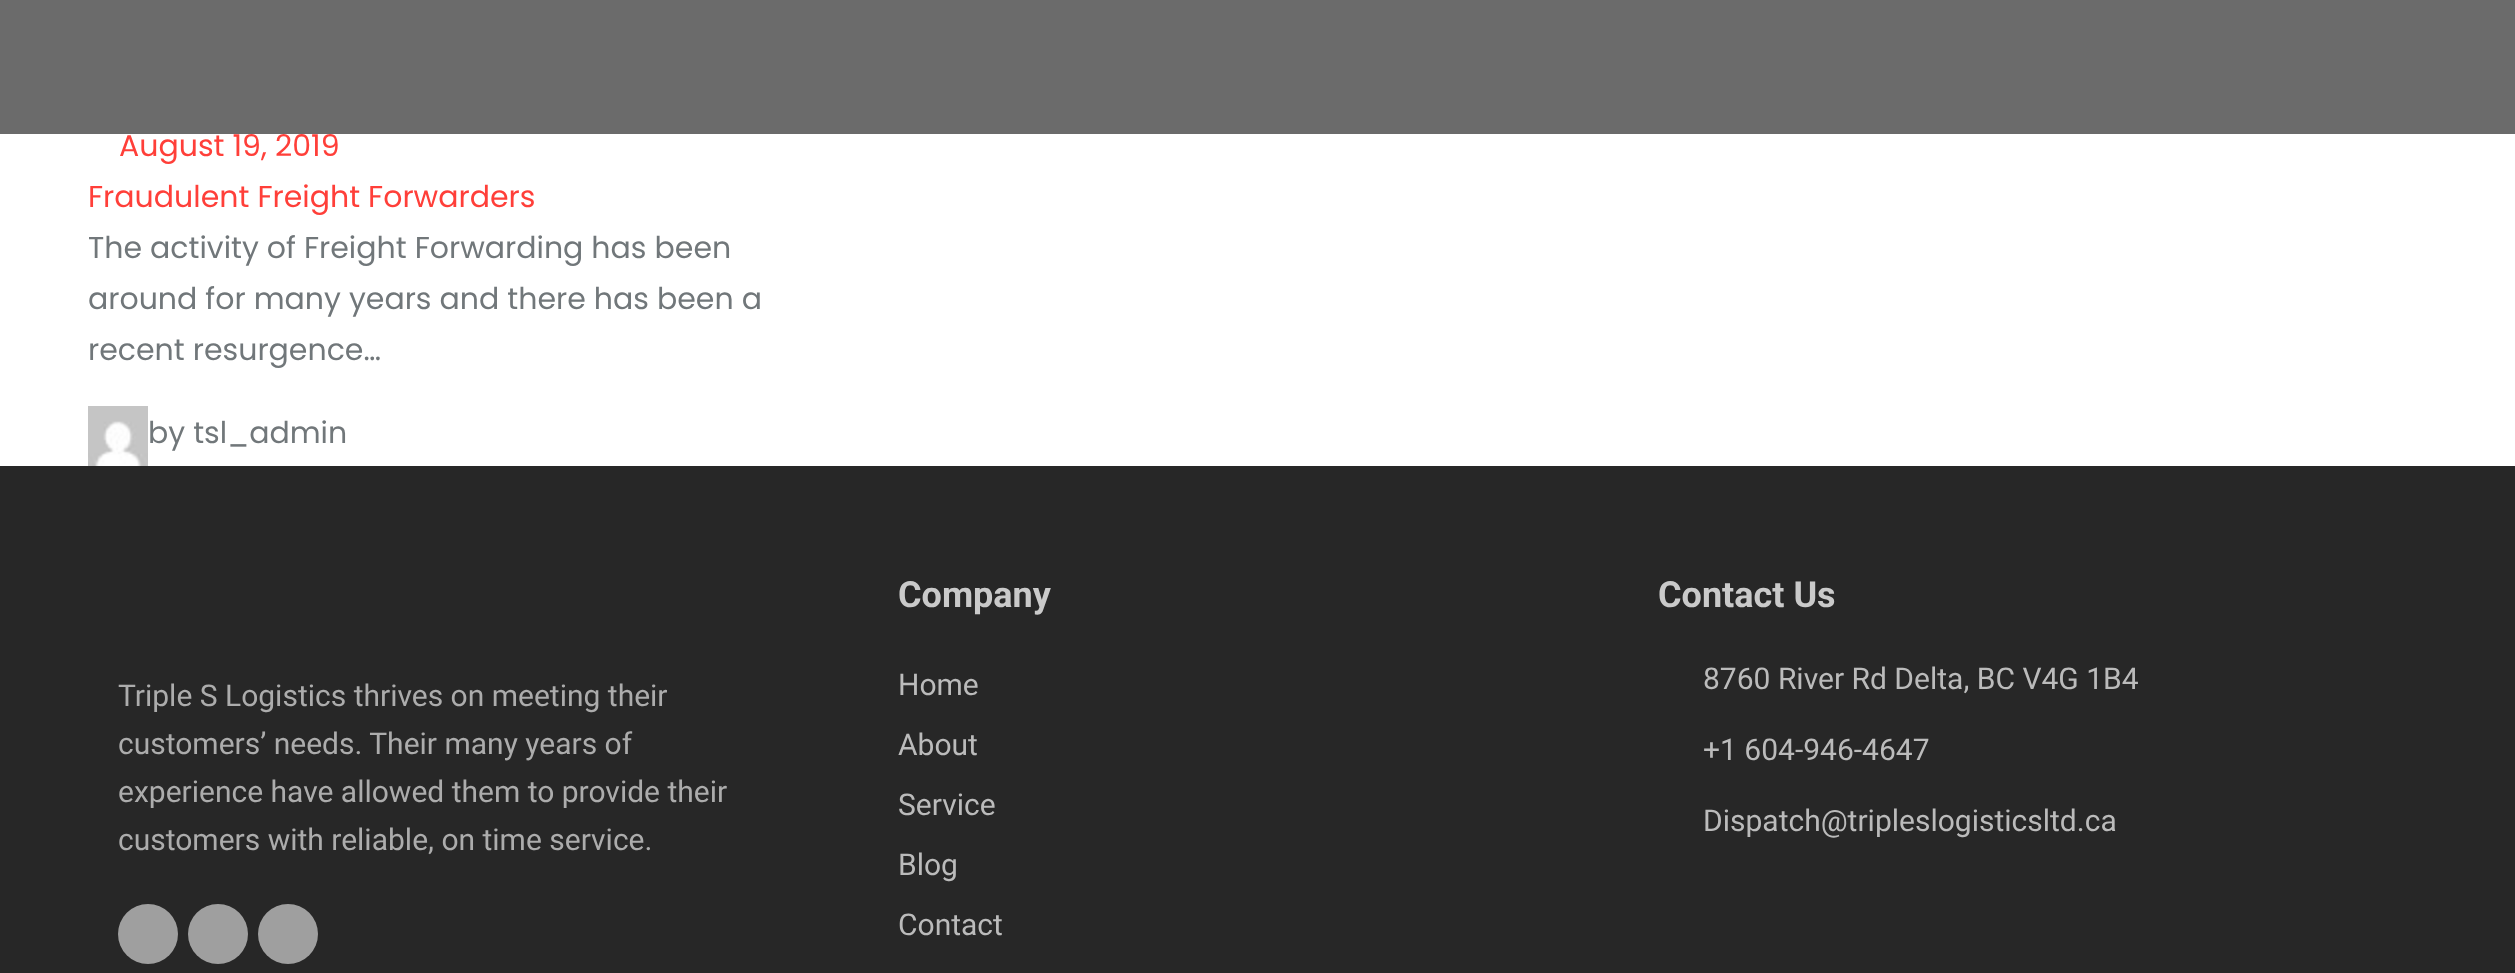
<svg xmlns="http://www.w3.org/2000/svg" width="2515" height="973">
	<rect width="100%" height="100%" fill="#FFFFFF" />
	<text x="119" y="156" font-family="Poppins" font-size="30" fill="#FF3F39">August 19, 2019</text>
	<rect x="0" y="0" width="2515" height="134" fill="#000000" fill-opacity="0.58" />
	<text x="88" y="207" font-family="Poppins" font-size="30" fill="#FF3F39">Fraudulent Freight Forwarders</text>
	<g font-family="Poppins" font-size="30" fill="#71777A">
		<text x="88" y="258">The activity of Freight Forwarding has been</text>
		<text x="88" y="309">around for many years and there has been a</text>
		<text x="88" y="360">recent resurgence…</text>
	</g>
	<image x="88" y="406" width="60" height="60" href="assets/img1.png" />
	<text x="148" y="443" font-family="Poppins" font-size="30" fill="#71777A">by tsl_admin</text>
	<rect x="0" y="466" width="2515" height="507" fill="#272727" />
	<g font-family="Roboto" font-size="30" fill="#ACACAC">
		<text x="118" y="706">Triple S Logistics thrives on meeting their</text>
		<text x="118" y="754">customers’ needs. Their many years of</text>
		<text x="118" y="802">experience have allowed them to provide their</text>
		<text x="118" y="850">customers with reliable, on time service.</text>
	</g>
	<circle cx="148" cy="934" r="30" fill="#9F9F9F" />
	<circle cx="218" cy="934" r="30" fill="#9F9F9F" />
	<circle cx="288" cy="934" r="30" fill="#9F9F9F" />
	<text x="898" y="607" font-family="Roboto" font-size="36" font-weight="700" fill="#CACACA">Company</text>
	<g font-family="Roboto" font-size="30" fill="#BBBBBB">
		<text x="898" y="695">Home</text>
		<text x="898" y="755">About</text>
		<text x="898" y="815">Service</text>
		<text x="898" y="875">Blog</text>
		<text x="898" y="935">Contact</text>
	</g>
	<text x="1658" y="607" font-family="Roboto" font-size="36" font-weight="700" fill="#CACACA">Contact Us</text>
	<g font-family="Roboto" font-size="30" fill="#BBBBBB">
		<text x="1703" y="689">8760 River Rd Delta, BC V4G 1B4</text>
		<text x="1703" y="760">+1 604-946-4647</text>
		<text x="1703" y="831">Dispatch@tripleslogisticsltd.ca</text>
	</g>
</svg>
